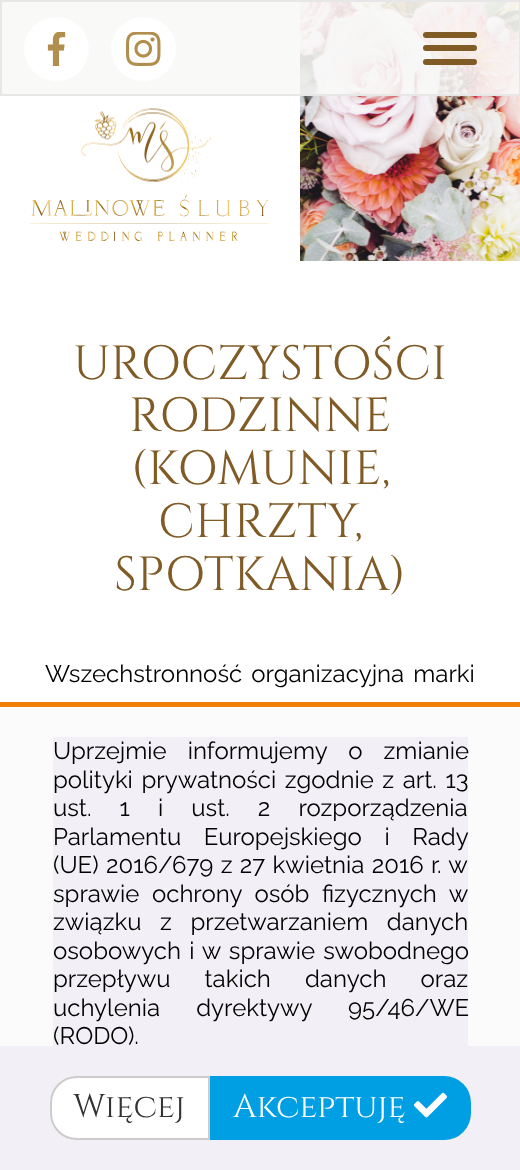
<svg xmlns="http://www.w3.org/2000/svg" width="520" height="1170">
	<rect width="100%" height="100%" fill="#FFFFFF" />
	<image x="300" y="2" width="220" height="259" href="assets/img5.png" />
	<rect x="1" y="1" width="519" height="94" fill="#F8F8F7" fill-opacity="0.89" stroke="#E7E7E7" stroke-width="2" />
	<rect x="24" y="17" width="65" height="64" rx="32" fill="#FFFFFF" />
	<image x="47" y="32" width="19" height="34" href="assets/img1.png" />
	<rect x="111" y="17" width="65" height="64" rx="32" fill="#FFFFFF" />
	<image x="126" y="32" width="35" height="34" href="assets/img2.png" />
	<rect x="423" y="32" width="54" height="6" rx="3" fill="#805B26" />
	<rect x="423" y="45" width="54" height="6" rx="3" fill="#805B26" />
	<rect x="423" y="59" width="54" height="6" rx="3" fill="#805B26" />
	<image x="81" y="108" width="135" height="75" href="assets/img3.png" />
	<image x="30" y="195" width="239" height="46" href="assets/img4.png" />
	<g font-family="Cinzel" font-size="48" fill="#805B26">
		<text x="73" y="379">UROCZYSTOŚCI</text>
		<text x="129" y="431">RODZINNE</text>
		<text x="131" y="484">(KOMUNIE,</text>
		<text x="158" y="537">CHRZTY,</text>
		<text x="114" y="590">SPOTKANIA)</text>
	</g>
	<text x="45" y="682" word-spacing="3" font-family="Raleway" font-size="24" fill="#000000">Wszechstronność organizacyjna marki</text>
	<rect x="0" y="707" width="520" height="339" fill="#FBFBFB" />
	<rect x="0" y="702" width="520" height="5" fill="#EF7F07" />
	<rect x="53" y="737" width="415" height="309" fill="#F2F0F6" />
	<g font-family="Raleway" font-size="24" fill="#000000">
		<text x="53" y="759" word-spacing="15">Uprzejmie informujemy o zmianie</text>
		<text x="53" y="788" word-spacing="2.5">polityki prywatności zgodnie z art. 13</text>
		<text x="53" y="816" word-spacing="22">ust. 1 i ust. 2 rozporządzenia</text>
		<text x="53" y="845" word-spacing="16.5">Parlamentu Europejskiego i Rady</text>
		<text x="53" y="873" word-spacing="1.25">(UE) 2016/679 z 27 kwietnia 2016 r. w</text>
		<text x="53" y="902" word-spacing="6.5">sprawie ochrony osób fizycznych w</text>
		<text x="53" y="930" word-spacing="12.5">związku z przetwarzaniem danych</text>
		<text x="53" y="959" word-spacing="2">osobowych i w sprawie swobodnego</text>
		<text x="53" y="987" word-spacing="28">przepływu takich danych oraz</text>
		<text x="53" y="1016" word-spacing="30">uchylenia dyrektywy 95/46/WE</text>
		<text x="53" y="1044">(RODO).</text>
	</g>
	<rect x="0" y="1046" width="520" height="124" fill="#F2F0F6" />
	<path d="M77 1077H209V1139H77C62.5 1139 51 1127.5 51 1113V1103C51 1088.5 62.5 1077 77 1077Z" fill="#FFFFFF" stroke="#CCCCCC" stroke-width="2" />
	<text x="73" y="1117" font-family="Cinzel" font-size="33" fill="#333333">Więcej</text>
	<path d="M211 1077H444C458.5 1077 470 1088.5 470 1103V1113C470 1127.5 458.5 1139 444 1139H211Z" fill="#009EE3" stroke="#009EE3" stroke-width="2" />
	<text x="233" y="1117" font-family="Cinzel" font-size="33" fill="#FFFFFF">Akceptuję</text>
	<image x="414" y="1092" width="33" height="26" href="assets/img6.png" />
</svg>
